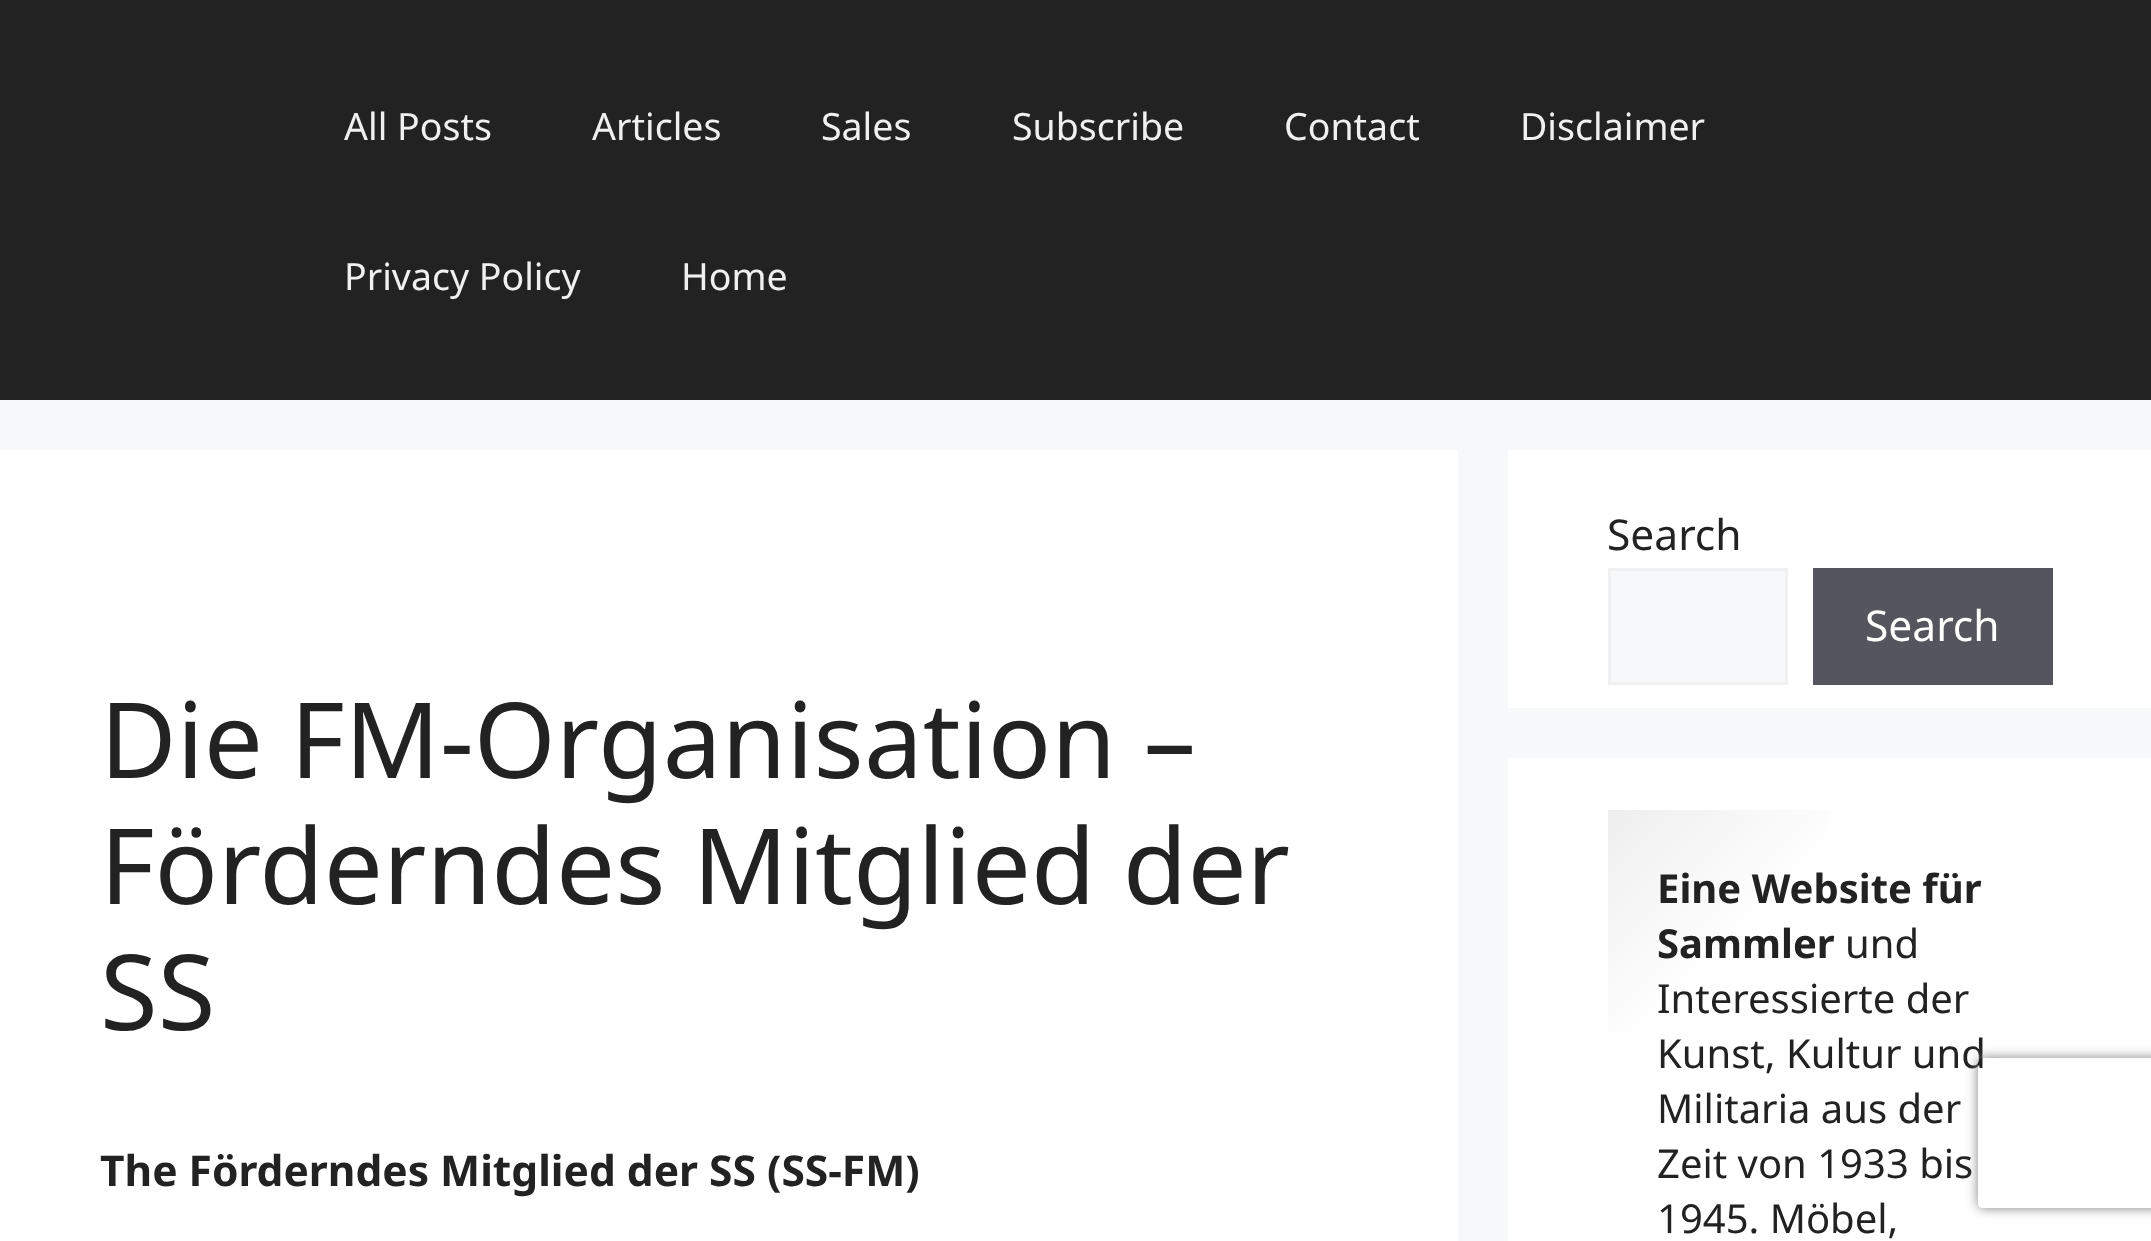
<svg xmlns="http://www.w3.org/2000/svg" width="2151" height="1241">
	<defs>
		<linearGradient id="g1" gradientUnits="userSpaceOnUse" x1="1171" y1="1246" x2="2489" y2="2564"><stop offset="0" stop-color="#EEEEEE" /><stop offset="0.1" stop-color="#FFFFFF" /><stop offset="1" stop-color="#F8FBFF" /></linearGradient>
		<clipPath id="clip1"><path d="M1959 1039H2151V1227H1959ZM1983 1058H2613C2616 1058 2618 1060 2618 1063V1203C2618 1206 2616 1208 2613 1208H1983C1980 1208 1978 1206 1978 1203V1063C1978 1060 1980 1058 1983 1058Z" clip-rule="evenodd" /></clipPath>
	</defs>
	<rect width="100%" height="100%" fill="#F7F8F9" />
	<rect x="0" y="0" width="2151" height="400" fill="#222222" />
	<g font-family="Noto Sans" font-size="37.5" fill="#F0F0F0">
		<text x="344" y="140">All Posts</text>
		<text x="592" y="140">Articles</text>
		<text x="821" y="140">Sales</text>
		<text x="1012" y="140">Subscribe</text>
		<text x="1284" y="140">Contact</text>
		<text x="1520" y="140">Disclaimer</text>
		<text x="344" y="290">Privacy Policy</text>
		<text x="681" y="290">Home</text>
	</g>
	<rect x="0" y="450" width="1458" height="791" fill="#FFFFFF" />
	<g font-family="Noto Sans" font-size="105" fill="#222222">
		<text x="100" y="778">Die FM-Organisation –</text>
		<text x="100" y="904">Förderndes Mitglied der</text>
		<text x="100" y="1030">SS</text>
	</g>
	<text x="100" y="1186" font-family="Noto Sans" font-size="42.5" font-weight="700" fill="#222222">The Förderndes Mitglied der SS (SS-FM)</text>
	<rect x="1508" y="450" width="643" height="258" fill="#FFFFFF" />
	<text x="1607" y="550" font-family="Noto Sans" font-size="42.5" fill="#222222">Search</text>
	<rect x="1609.5" y="569.5" width="177" height="114" fill="#F7F8F9" stroke="#F0F0F0" stroke-width="3" />
	<rect x="1813" y="568" width="240" height="117" fill="#55555E" />
	<text x="1865" y="641" font-family="Noto Sans" font-size="42.5" fill="#FFFFFF">Search</text>
	<rect x="1508" y="758" width="643" height="483" fill="#FFFFFF" />
	<rect x="1608" y="810" width="223" height="223" fill="url(#g1)" />
	<g font-family="Noto Sans" font-size="40" font-weight="700" fill="#222222">
		<text x="1657" y="903">Eine Website für</text>
		<text x="1657" y="958">Sammler</text>
	</g>
	<g font-family="Noto Sans" font-size="40" fill="#222222">
		<text x="1845" y="958">und</text>
		<text x="1657" y="1013">Interessierte der</text>
		<text x="1657" y="1068">Kunst, Kultur und</text>
		<text x="1657" y="1123">Militaria aus der</text>
		<text x="1657" y="1178">Zeit von 1933 bis</text>
		<text x="1657" y="1233">1945. Möbel,</text>
	</g>
	<g clip-path="url(#clip1)">
		<rect x="1978" y="1058" width="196" height="150" rx="5" fill="#808080" filter="blur(6px)" />
	</g>
</svg>
